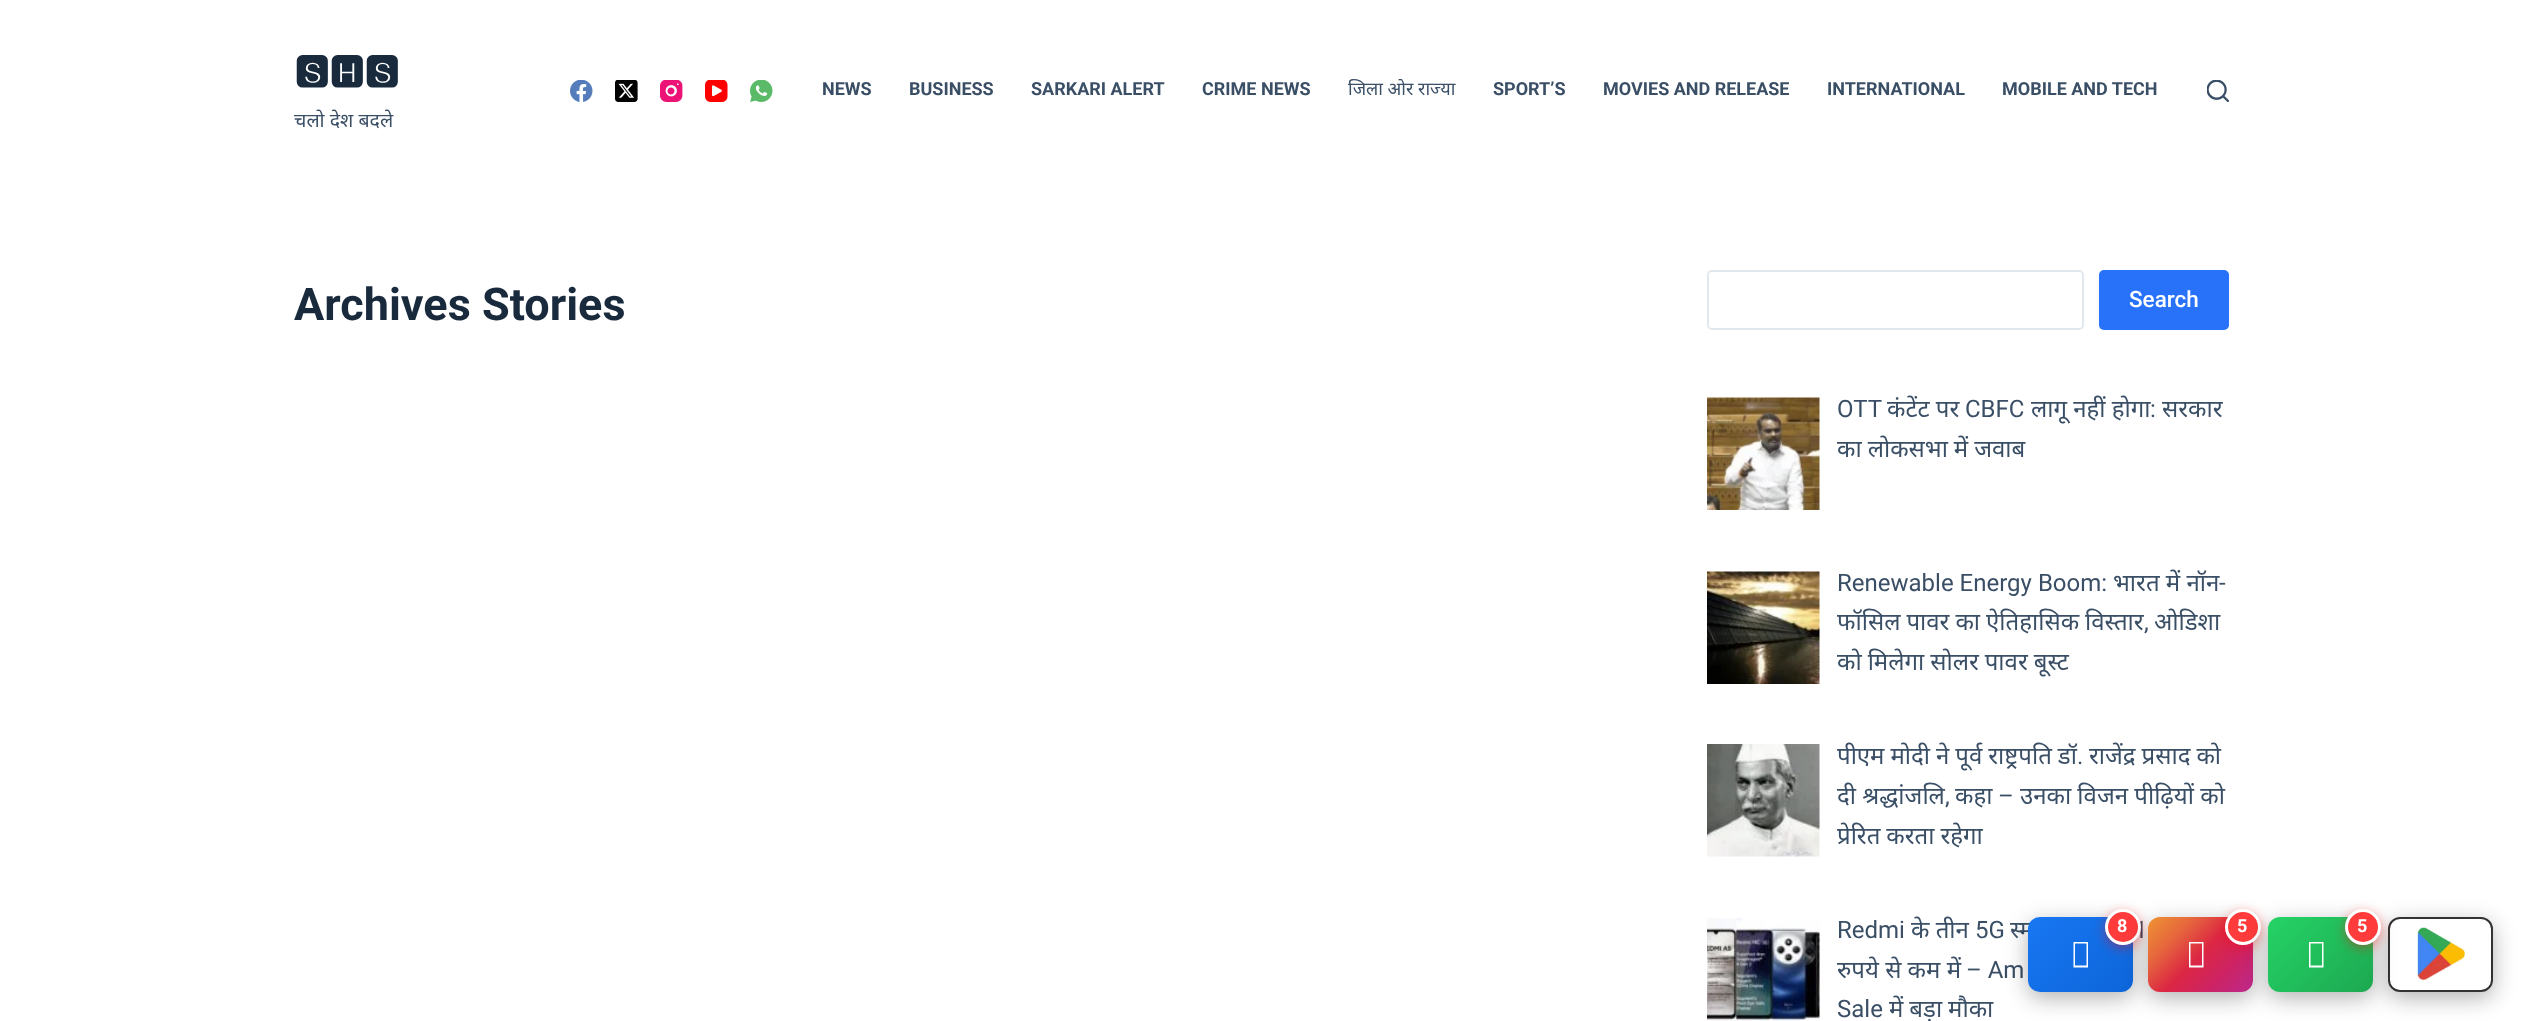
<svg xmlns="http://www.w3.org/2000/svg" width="2523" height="1021">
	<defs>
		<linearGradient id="g1" gradientUnits="userSpaceOnUse" x1="2036" y1="909" x2="2126" y2="999"><stop offset="0" stop-color="#1877F2" /><stop offset="1" stop-color="#0D65D9" /></linearGradient>
		<linearGradient id="g2" gradientUnits="userSpaceOnUse" x1="2156" y1="909" x2="2246" y2="999"><stop offset="0" stop-color="#F09433" /><stop offset="0.25" stop-color="#E6683C" /><stop offset="0.5" stop-color="#DC2743" /><stop offset="0.75" stop-color="#CC2366" /><stop offset="1" stop-color="#BC2A8D" /></linearGradient>
		<linearGradient id="g3" gradientUnits="userSpaceOnUse" x1="2276" y1="909" x2="2366" y2="999"><stop offset="0" stop-color="#25D366" /><stop offset="1" stop-color="#1DA851" /></linearGradient>
	</defs>
	<rect width="100%" height="100%" fill="#FFFFFF" />
	<text x="294" y="83" font-family="FreeSans" font-size="37.5" font-weight="700" fill="#192A3D">🆂🅷🆂</text>
	<text x="294" y="127" font-family="Noto Sans" font-size="19.5" fill="#3A4F66">चलो देश बदले</text>
	<image x="570" y="80" width="23" height="22" href="assets/img1.png" />
	<image x="615" y="80" width="23" height="22" href="assets/img2.png" />
	<image x="660" y="80" width="23" height="22" href="assets/img3.png" />
	<image x="705" y="80" width="23" height="22" href="assets/img4.png" />
	<image x="750" y="80" width="23" height="22" href="assets/img5.png" />
	<g font-family="Roboto" font-size="18" font-weight="700" fill="#3A4F66">
		<text x="822" y="95">NEWS</text>
		<text x="909" y="95">BUSINESS</text>
		<text x="1031" y="95">SARKARI ALERT</text>
		<text x="1202" y="95">CRIME NEWS</text>
	</g>
	<text x="1348" y="95" font-family="Noto Sans" font-size="18" fill="#3A4F66">जिला ओर राज्या</text>
	<g font-family="Roboto" font-size="18" font-weight="700" fill="#3A4F66">
		<text x="1493" y="95">SPORT’S</text>
		<text x="1603" y="95">MOVIES AND RELEASE</text>
		<text x="1827" y="95">INTERNATIONAL</text>
		<text x="2002" y="95">MOBILE AND TECH</text>
	</g>
	<image x="2207" y="80" width="22" height="22" href="assets/img6.png" />
	<text x="294" y="320" font-family="Roboto" font-size="45" font-weight="700" fill="#192A3D">Archives Stories</text>
	<rect x="1708" y="271" width="375" height="58" rx="4" fill="none" stroke="#E1E8ED" stroke-width="2" />
	<rect x="2099" y="270" width="130" height="60" rx="5" fill="#2872FA" />
	<text x="2129" y="307" font-family="Roboto" font-size="22.5" font-weight="500" fill="#FFFFFF">Search</text>
	<image x="1707" y="397" width="113" height="113" href="assets/img7.png" />
	<text x="1837" y="417" font-family="Roboto" font-size="24" fill="#3A4F66">OTT</text>
	<text x="1887" y="417" font-family="Noto Sans" font-size="24" fill="#3A4F66">कंटेंट पर</text>
	<text x="1965" y="417" font-family="Roboto" font-size="24" fill="#3A4F66">CBFC</text>
	<text x="2031" y="417" font-family="Noto Sans" font-size="24" fill="#3A4F66">लागू नहीं होगा</text>
	<text x="2150" y="417" font-family="Roboto" font-size="24" fill="#3A4F66">:</text>
	<g font-family="Noto Sans" font-size="24" fill="#3A4F66">
		<text x="2162" y="417">सरकार</text>
		<text x="1837" y="457" word-spacing="-0.25">का लोकसभा में जवाब</text>
	</g>
	<image x="1707" y="571" width="113" height="113" href="assets/img8.png" />
	<text x="1837" y="591" font-family="Roboto" font-size="24" fill="#3A4F66">Renewable Energy Boom:</text>
	<text x="2113" y="591" font-family="Noto Sans" font-size="24" fill="#3A4F66">भारत में नॉन</text>
	<text x="2219" y="591" font-family="Roboto" font-size="24" fill="#3A4F66">-</text>
	<text x="1837" y="630" word-spacing="-0.25" font-family="Noto Sans" font-size="24" fill="#3A4F66">फॉसिल पावर का ऐतिहासिक विस्तार</text>
	<text x="2144" y="630" font-family="Roboto" font-size="24" fill="#3A4F66">,</text>
	<g font-family="Noto Sans" font-size="24" fill="#3A4F66">
		<text x="2154" y="630">ओडिशा</text>
		<text x="1837" y="670" word-spacing="-0.25">को मिलेगा सोलर पावर बूस्ट</text>
	</g>
	<image x="1707" y="744" width="113" height="113" href="assets/img9.png" />
	<text x="1837" y="764" word-spacing="-0.25" font-family="Noto Sans" font-size="24" fill="#3A4F66">पीएम मोदी ने पूर्व राष्ट्रपति डॉ</text>
	<text x="2077" y="764" font-family="Roboto" font-size="24" fill="#3A4F66">.</text>
	<g font-family="Noto Sans" font-size="24" fill="#3A4F66">
		<text x="2089" y="764" word-spacing="-0.25">राजेंद्र प्रसाद को</text>
		<text x="1837" y="804">दी श्रद्धांजलि</text>
		<text x="1955" y="804">कहा</text>
	</g>
	<text x="1998" y="804" font-family="Roboto" font-size="24" fill="#3A4F66">–</text>
	<text x="2020" y="804" font-family="Noto Sans" font-size="24" fill="#3A4F66">उनका विजन पीढ़ियों को</text>
	<text x="1945" y="804" font-family="Roboto" font-size="24" fill="#3A4F66">,</text>
	<text x="1837" y="844" word-spacing="-0.25" font-family="Noto Sans" font-size="24" fill="#3A4F66">प्रेरित करता रहेगा</text>
	<image x="1707" y="918" width="113" height="103" href="assets/img10.png" />
	<text x="1837" y="938" font-family="Roboto" font-size="24" fill="#3A4F66">Redmi</text>
	<text x="1911" y="938" font-family="Noto Sans" font-size="24" fill="#3A4F66">के तीन</text>
	<text x="1975" y="938" font-family="Roboto" font-size="24" fill="#3A4F66">5G</text>
	<text x="2010" y="938" font-family="Noto Sans" font-size="24" fill="#3A4F66">स्म</text>
	<text x="2134" y="938" font-family="Roboto" font-size="24" fill="#3A4F66">1</text>
	<text x="1837" y="978" font-family="Noto Sans" font-size="24" fill="#3A4F66">रुपये से कम में</text>
	<g font-family="Roboto" font-size="24" fill="#3A4F66">
		<text x="1966" y="978">– Am</text>
		<text x="1837" y="1017">Sale</text>
	</g>
	<text x="1889" y="1017" word-spacing="-0.25" font-family="Noto Sans" font-size="24" fill="#3A4F66">में बड़ा मौका</text>
	<rect x="2028" y="923" width="105" height="75" rx="12" fill="#000000" fill-opacity="0.3" filter="blur(11px)" />
	<rect x="2028" y="917" width="105" height="75" rx="12" fill="url(#g1)" />
	<path d="M2073.5 967.5V942H2088V967.5ZM2075 965.5H2086.5V943.5H2075Z" fill="#FFFFFF" />
	<rect x="2105" y="912" width="36" height="36" rx="18" fill="#FF0000" fill-opacity="0.4" filter="blur(6px)" />
	<circle cx="2123" cy="927" r="16.5" fill="#FF3B3B" stroke="#FFFFFF" stroke-width="3" />
	<text x="2117" y="932" font-family="Roboto" font-size="18" font-weight="700" fill="#FFFFFF">8</text>
	<rect x="2148" y="923" width="105" height="75" rx="12" fill="#000000" fill-opacity="0.3" filter="blur(11px)" />
	<rect x="2148" y="917" width="105" height="75" rx="12" fill="url(#g2)" />
	<rect x="2225" y="912" width="36" height="36" rx="18" fill="#FF0000" fill-opacity="0.4" filter="blur(6px)" />
	<circle cx="2243" cy="927" r="16.5" fill="#FF3B3B" stroke="#FFFFFF" stroke-width="3" />
	<text x="2237" y="932" font-family="Roboto" font-size="18" font-weight="700" fill="#FFFFFF">5</text>
	<path d="M2189 967.5V942H2203.5V967.5ZM2190.5 965.5H2202V943.5H2190.5Z" fill="#FFFFFF" />
	<rect x="2388" y="923" width="105" height="75" rx="12" fill="#000000" fill-opacity="0.3" filter="blur(11px)" />
	<rect x="2389" y="918" width="103" height="73" rx="11" fill="#FFFFFF" stroke="#333333" stroke-width="2" />
	<image x="2417" y="927" width="48" height="54" href="assets/img11.png" />
	<rect x="2268" y="923" width="105" height="75" rx="12" fill="#000000" fill-opacity="0.3" filter="blur(11px)" />
	<rect x="2268" y="917" width="105" height="75" rx="12" fill="url(#g3)" />
	<rect x="2345" y="912" width="36" height="36" rx="18" fill="#FF0000" fill-opacity="0.4" filter="blur(6px)" />
	<circle cx="2363" cy="927" r="16.5" fill="#FF3B3B" stroke="#FFFFFF" stroke-width="3" />
	<text x="2357" y="932" font-family="Roboto" font-size="18" font-weight="700" fill="#FFFFFF">5</text>
	<path d="M2309 967.5V942H2323.5V967.5ZM2310.5 965.5H2322V943.5H2310.5Z" fill="#FFFFFF" />
</svg>
